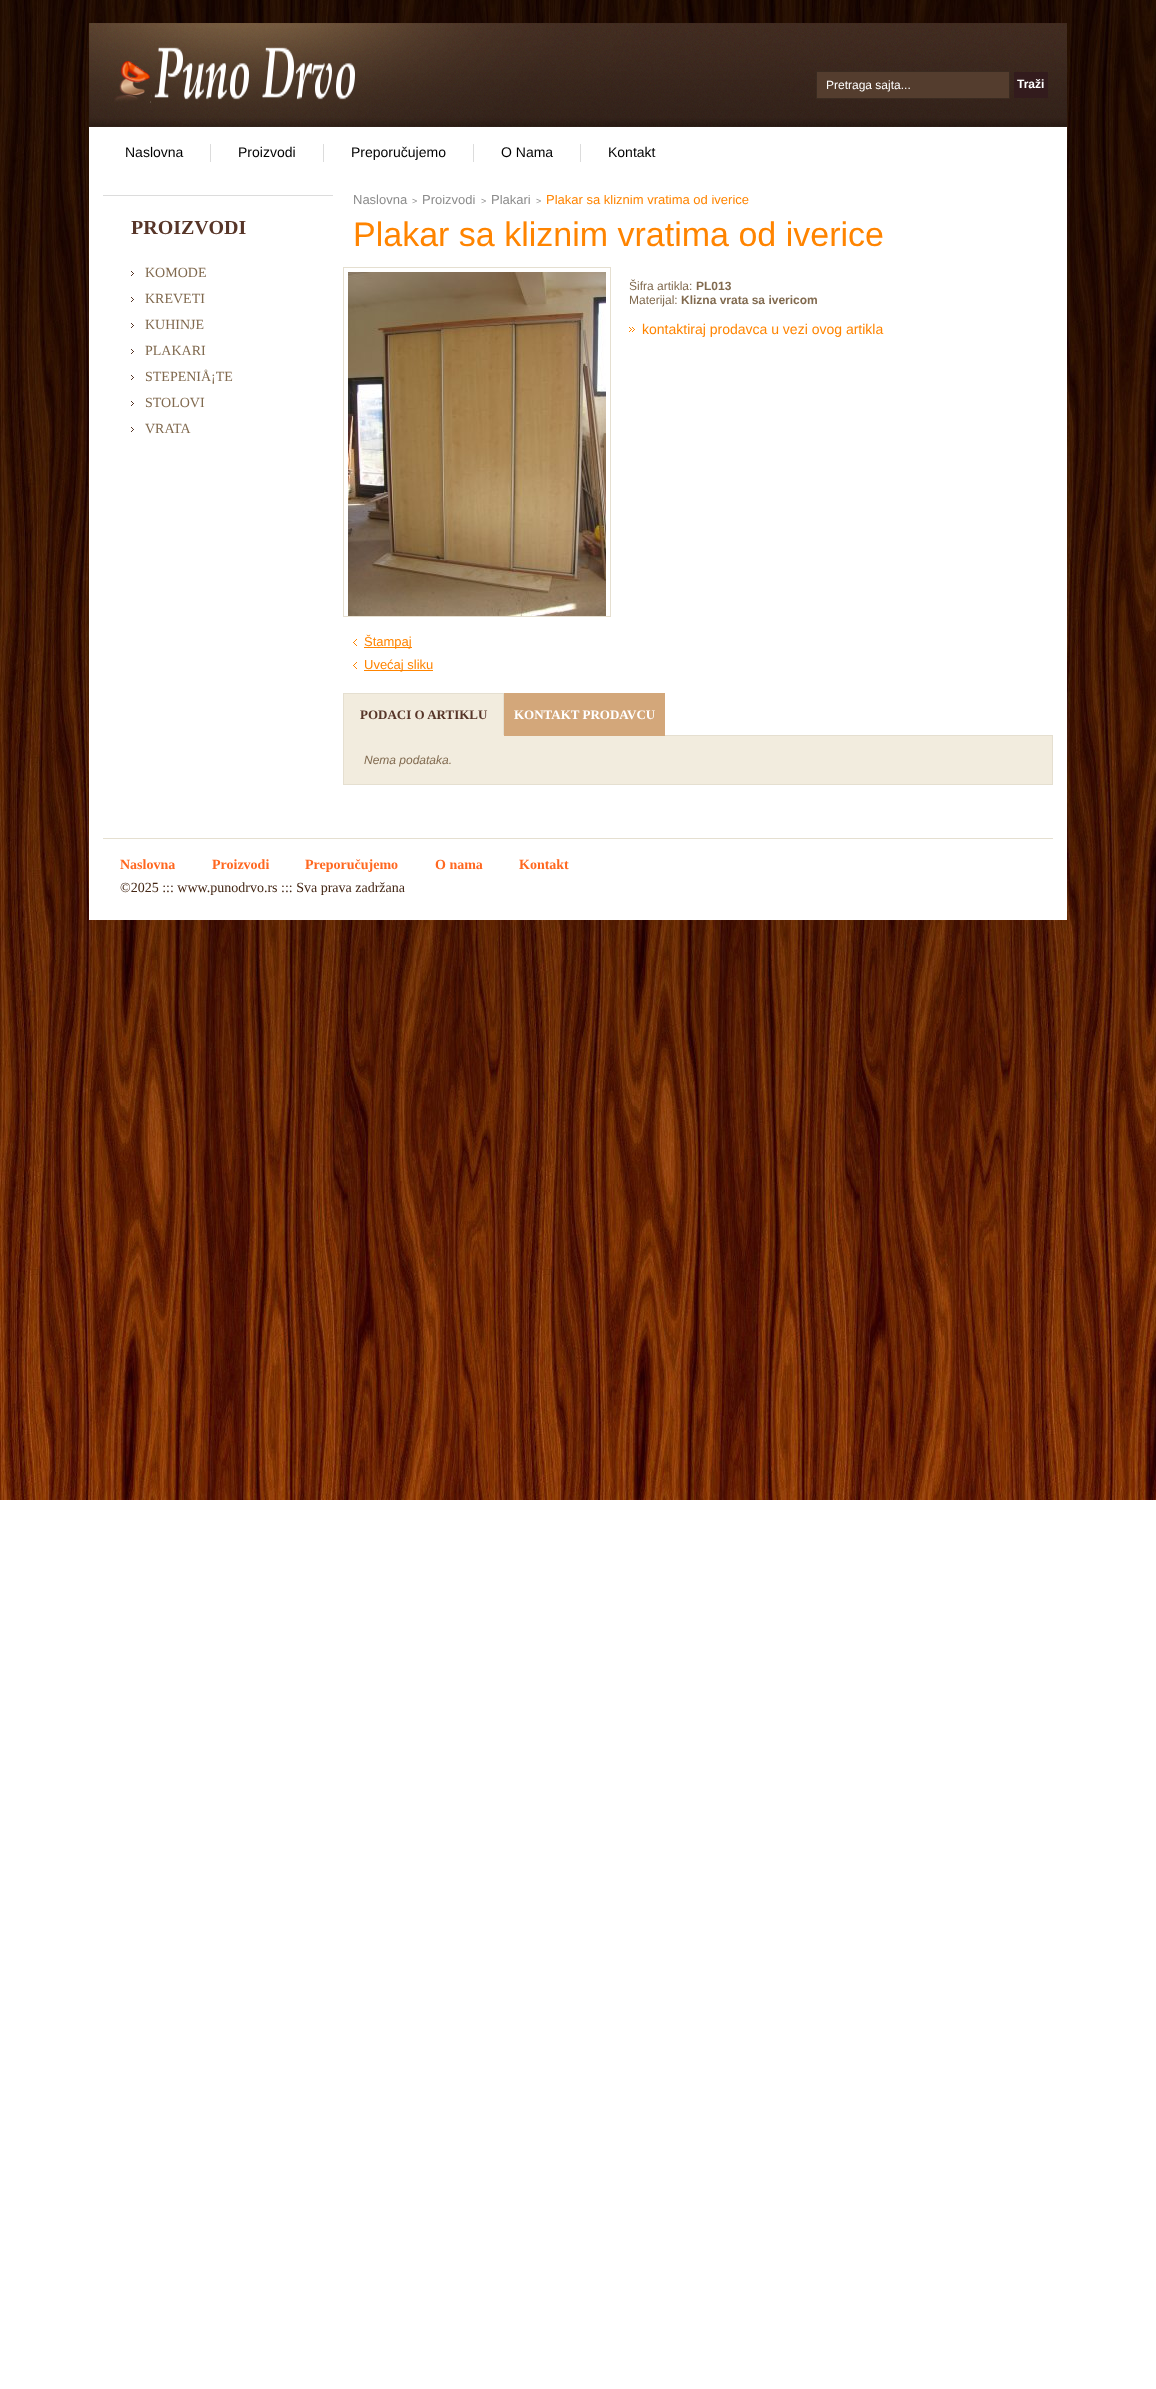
<svg xmlns="http://www.w3.org/2000/svg" width="1156" height="2389">
	<defs>
		<clipPath id="clip1"><rect x="343" y="195" width="710" height="643" /></clipPath>
	</defs>
	<rect width="100%" height="100%" fill="#FFFFFF" />
	<image x="0" y="0" width="1156" height="1500" href="assets/img1.png" />
	<image x="89" y="23" width="978" height="155" href="assets/img2.png" />
	<image x="114" y="47" width="241" height="56" href="assets/img3.png" />
	<rect x="816.5" y="71.5" width="193" height="27" fill="#543D2E" stroke="#3A2B21" />
	<text x="826" y="89" font-family="Liberation Sans" font-size="12" fill="#FFFFFF">Pretraga sajta...</text>
	<rect x="1014" y="72" width="34" height="26" fill="#331B1D" />
	<text x="1017" y="88" font-family="Liberation Sans" font-size="12" font-weight="700" fill="#FFFFFF">Traži</text>
	<text x="125" y="157" font-family="Liberation Sans" font-size="14" fill="#000000">Naslovna</text>
	<rect x="210" y="144" width="1" height="18" fill="#DCDCDC" />
	<text x="238" y="157" font-family="Liberation Sans" font-size="14" fill="#000000">Proizvodi</text>
	<rect x="323" y="144" width="1" height="18" fill="#DCDCDC" />
	<text x="351" y="157" font-family="Liberation Sans" font-size="14" fill="#000000">Preporučujemo</text>
	<rect x="473" y="144" width="1" height="18" fill="#DCDCDC" />
	<text x="501" y="157" font-family="Liberation Sans" font-size="14" fill="#000000">O Nama</text>
	<rect x="580" y="144" width="1" height="18" fill="#DCDCDC" />
	<text x="608" y="157" font-family="Liberation Sans" font-size="14" fill="#000000">Kontakt</text>
	<rect x="89" y="178" width="978" height="742" fill="#FFFFFF" />
	<rect x="103" y="195" width="230" height="1" fill="#DCDCDC" />
	<text x="131" y="234" font-family="Liberation Serif" font-size="20" font-weight="700" fill="#573528">PROIZVODI</text>
	<image x="131" y="271" width="3" height="5" href="assets/img4.png" />
	<text x="145" y="277" font-family="Liberation Serif" font-size="14" fill="#816A4F">KOMODE</text>
	<image x="131" y="297" width="3" height="5" href="assets/img4.png" />
	<text x="145" y="303" font-family="Liberation Serif" font-size="14" fill="#816A4F">KREVETI</text>
	<image x="131" y="323" width="3" height="5" href="assets/img4.png" />
	<text x="145" y="329" font-family="Liberation Serif" font-size="14" fill="#816A4F">KUHINJE</text>
	<image x="131" y="349" width="3" height="5" href="assets/img4.png" />
	<text x="145" y="355" font-family="Liberation Serif" font-size="14" fill="#816A4F">PLAKARI</text>
	<image x="131" y="375" width="3" height="5" href="assets/img4.png" />
	<text x="145" y="381" font-family="Liberation Serif" font-size="14" fill="#816A4F">STEPENIÅ¡TE</text>
	<image x="131" y="401" width="3" height="5" href="assets/img4.png" />
	<text x="145" y="407" font-family="Liberation Serif" font-size="14" fill="#816A4F">STOLOVI</text>
	<image x="131" y="427" width="3" height="5" href="assets/img4.png" />
	<text x="145" y="433" font-family="Liberation Serif" font-size="14" fill="#816A4F">VRATA</text>
	<text x="353" y="204" font-family="Liberation Sans" font-size="13" fill="#8C8C8C">Naslovna</text>
	<text x="412" y="204" font-family="Liberation Sans" font-size="9" fill="#8C8C8C">&gt;</text>
	<g clip-path="url(#clip1)">
		<text x="422" y="204" font-family="Liberation Sans" font-size="13" fill="#8C8C8C">Proizvodi</text>
	</g>
	<text x="481" y="204" font-family="Liberation Sans" font-size="9" fill="#8C8C8C">&gt;</text>
	<g clip-path="url(#clip1)">
		<text x="491" y="204" font-family="Liberation Sans" font-size="13" fill="#8C8C8C">Plakari</text>
	</g>
	<text x="536" y="204" font-family="Liberation Sans" font-size="9" fill="#8C8C8C">&gt;</text>
	<g clip-path="url(#clip1)">
		<text x="546" y="204" font-family="Liberation Sans" font-size="13" fill="#FF8400">Plakar sa kliznim vratima od iverice</text>
	</g>
	<text x="353" y="246" font-family="Liberation Sans" font-size="34" fill="#FF8400">Plakar sa kliznim vratima od iverice</text>
	<text x="629" y="290" font-family="Liberation Sans" font-size="12" fill="#816A4F">Šifra artikla:</text>
	<text x="696" y="290" font-family="Liberation Sans" font-size="12" font-weight="700" fill="#816A4F">PL013</text>
	<text x="629" y="304" font-family="Liberation Sans" font-size="12" fill="#816A4F">Materijal:</text>
	<text x="681" y="304" font-family="Liberation Sans" font-size="12" font-weight="700" fill="#816A4F">Klizna vrata sa ivericom</text>
	<image x="629" y="327" width="6" height="5" href="assets/img5.png" />
	<text x="642" y="334" font-family="Liberation Sans" font-size="14" fill="#FF8400">kontaktiraj prodavca u vezi ovog artikla</text>
	<rect x="343.5" y="267.5" width="267" height="349" fill="none" stroke="#E5DFD0" />
	<image x="348" y="272" width="258" height="344" href="assets/img6.png" />
	<image x="353" y="639" width="4" height="7" href="assets/img7.png" />
	<rect x="364" y="647" width="48" height="1" fill="#FF8400" />
	<text x="364" y="646" font-family="Liberation Sans" font-size="13" fill="#FF8400">Štampaj</text>
	<image x="353" y="662" width="4" height="7" href="assets/img7.png" />
	<rect x="364" y="670" width="69" height="1" fill="#FF8400" />
	<text x="364" y="669" font-family="Liberation Sans" font-size="13" fill="#FF8400">Uvećaj sliku</text>
	<rect x="344" y="694" width="159" height="41" fill="#F2ECDE" />
	<rect x="343" y="693" width="161" height="1" fill="#E5DFD0" />
	<rect x="343.5" y="735.5" width="709" height="49" fill="#F2ECDE" stroke="#E5DFD0" />
	<rect x="503" y="693" width="1" height="43" fill="#E5DFD0" />
	<rect x="343" y="735" width="161" height="1" fill="#F2ECDE" />
	<rect x="343" y="693" width="1" height="43" fill="#E5DFD0" />
	<text x="360" y="719" font-family="Liberation Serif" font-size="13" font-weight="700" fill="#573528">PODACI O ARTIKLU</text>
	<rect x="504" y="693" width="161" height="43" fill="#D3A77A" />
	<text x="514" y="719" font-family="Liberation Serif" font-size="13" font-weight="700" fill="#FFFFFF">KONTAKT PRODAVCU</text>
	<text x="364" y="764" font-family="Liberation Sans" font-size="12" font-style="italic" fill="#816A4F">Nema podataka.</text>
	<rect x="103" y="838" width="950" height="1" fill="#E5DFD0" />
	<g font-family="Liberation Serif" font-size="14" font-weight="700" fill="#FF6820">
		<text x="120" y="869">Naslovna</text>
		<text x="212" y="869">Proizvodi</text>
		<text x="305" y="869">Preporučujemo</text>
		<text x="435" y="869">O nama</text>
		<text x="519" y="869">Kontakt</text>
	</g>
	<text x="120" y="892" font-family="Liberation Serif" font-size="14" fill="#432614">©2025 ::: www.punodrvo.rs ::: Sva prava zadržana</text>
</svg>
